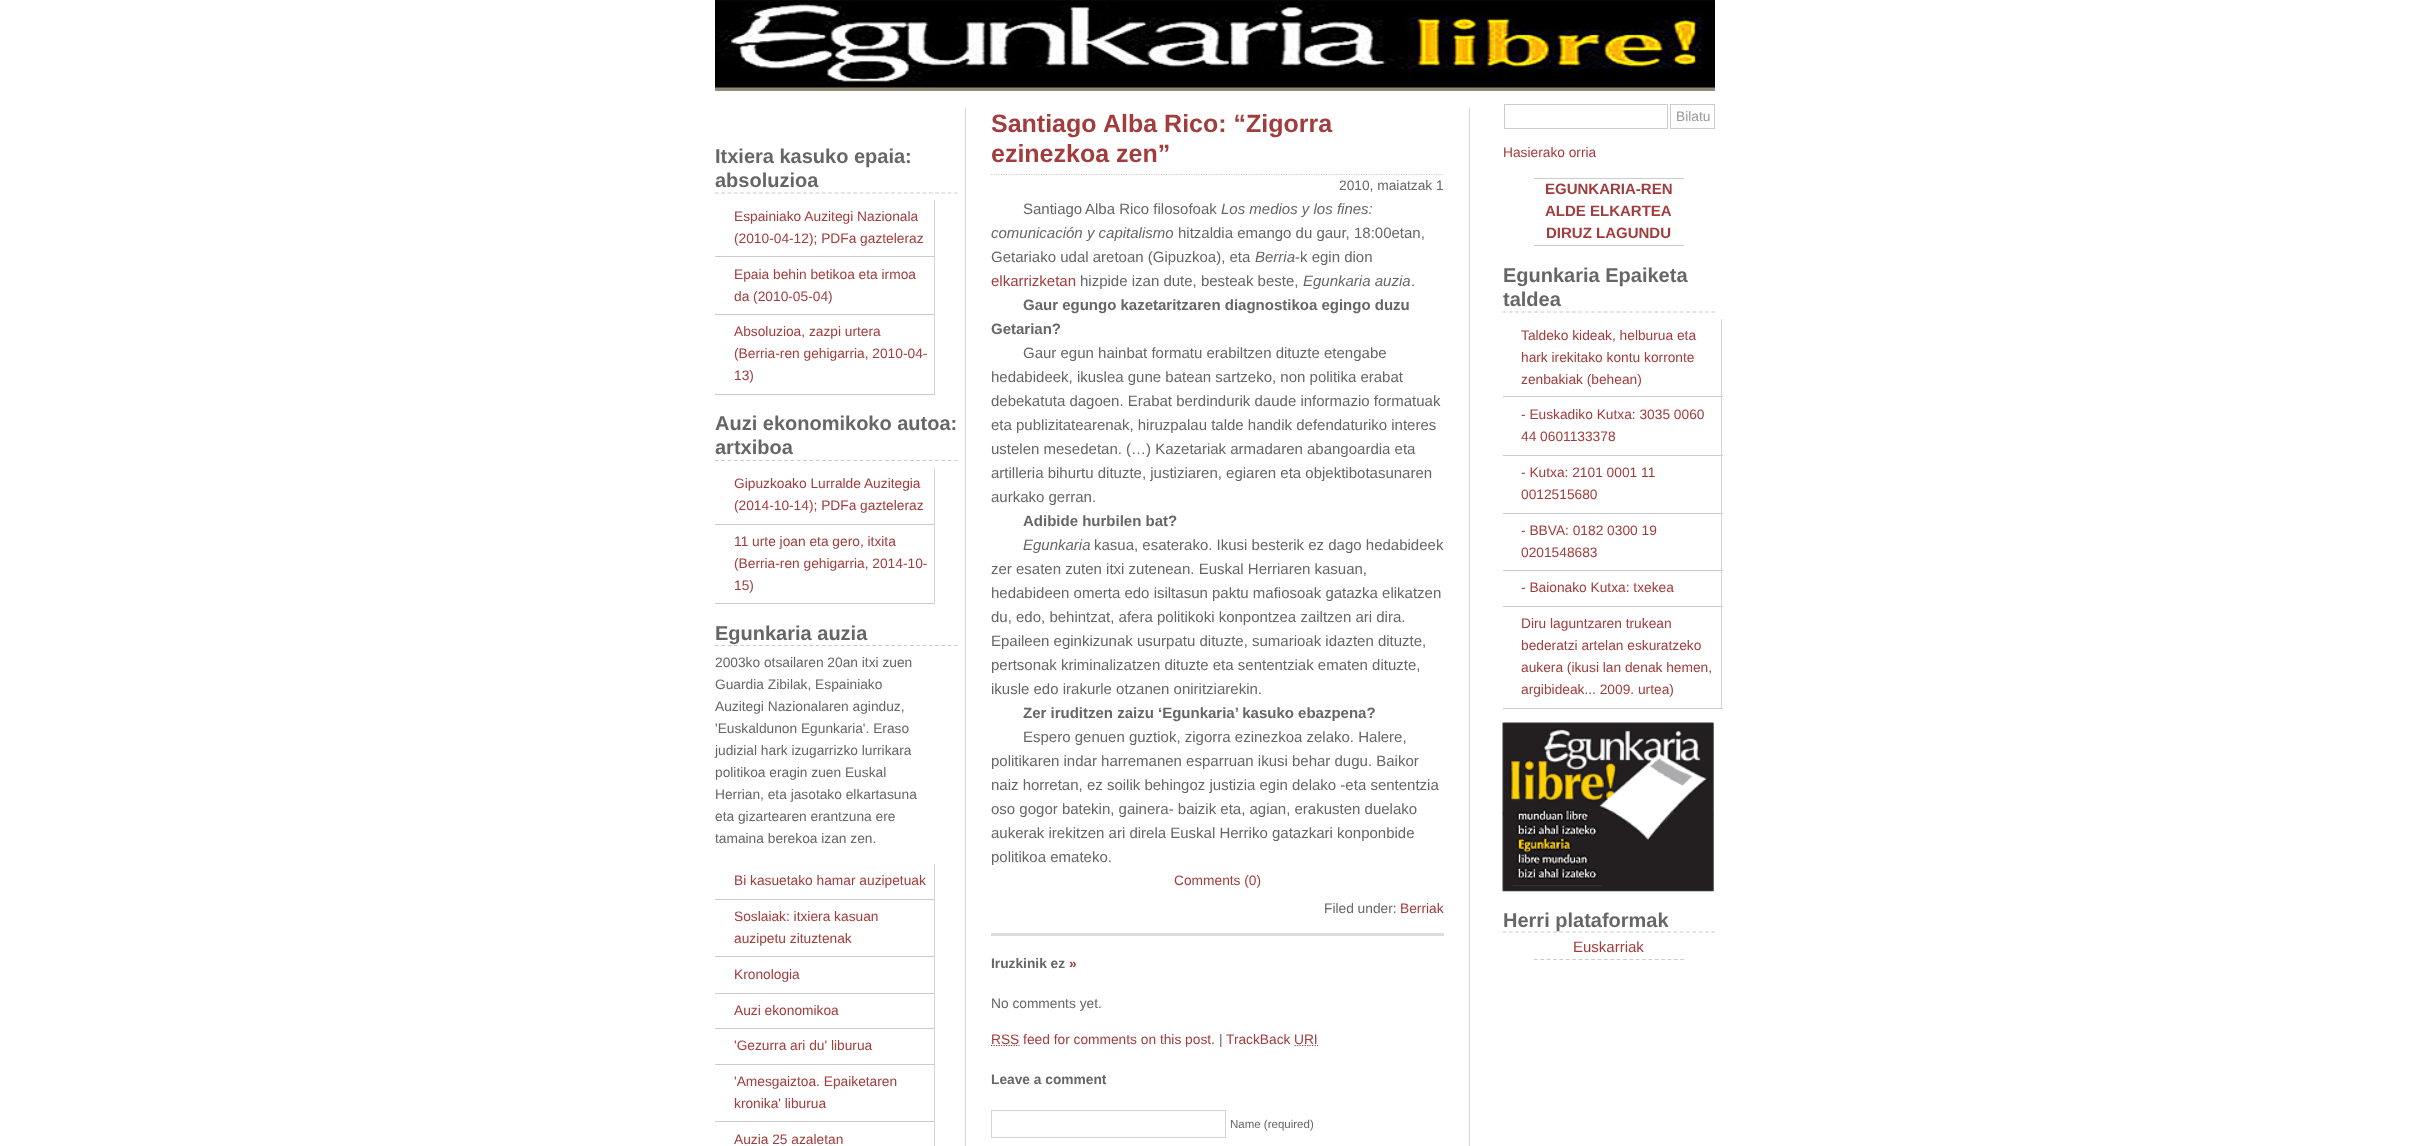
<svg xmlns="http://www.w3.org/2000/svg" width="2429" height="1146">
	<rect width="100%" height="100%" fill="#FFFFFF" />
	<rect x="715" y="87" width="1000" height="4" fill="#948979" />
	<image x="715" y="0" width="1000" height="88" href="assets/img1.png" />
	<path d="M715 193H957.5" fill="none" stroke="#CCCCCC" stroke-width="1.2" stroke-dasharray="3.75 2.54" />
	<g font-family="Liberation Sans" font-size="20" font-weight="700" fill="#666666">
		<text x="715" y="163">Itxiera kasuko epaia:</text>
		<text x="715" y="187">absoluzioa</text>
	</g>
	<rect x="934" y="200" width="1" height="195" fill="#D5D7D2" />
	<rect x="715" y="256" width="220" height="1" fill="#CCCCCC" />
	<g font-family="Liberation Sans" font-size="13.75" fill="#A23D3D">
		<text x="734" y="221">Espainiako Auzitegi Nazionala</text>
		<text x="734" y="243">(2010-04-12); PDFa gazteleraz</text>
	</g>
	<rect x="715" y="314" width="220" height="1" fill="#CCCCCC" />
	<g font-family="Liberation Sans" font-size="13.75" fill="#A23D3D">
		<text x="734" y="279">Epaia behin betikoa eta irmoa</text>
		<text x="734" y="301">da (2010-05-04)</text>
	</g>
	<rect x="715" y="394" width="220" height="1" fill="#CCCCCC" />
	<g font-family="Liberation Sans" font-size="13.75" fill="#A23D3D">
		<text x="734" y="336">Absoluzioa, zazpi urtera</text>
		<text x="734" y="358">(Berria-ren gehigarria, 2010-04-</text>
		<text x="734" y="380">13)</text>
	</g>
	<path d="M715 460.5H957.5" fill="none" stroke="#CCCCCC" stroke-width="1.2" stroke-dasharray="3.75 2.54" />
	<g font-family="Liberation Sans" font-size="20" font-weight="700" fill="#666666">
		<text x="715" y="430">Auzi ekonomikoko autoa:</text>
		<text x="715" y="454">artxiboa</text>
	</g>
	<rect x="934" y="468" width="1" height="136" fill="#D5D7D2" />
	<rect x="715" y="524" width="220" height="1" fill="#CCCCCC" />
	<g font-family="Liberation Sans" font-size="13.75" fill="#A23D3D">
		<text x="734" y="488">Gipuzkoako Lurralde Auzitegia</text>
		<text x="734" y="510">(2014-10-14); PDFa gazteleraz</text>
	</g>
	<rect x="715" y="603" width="220" height="1" fill="#CCCCCC" />
	<g font-family="Liberation Sans" font-size="13.75" fill="#A23D3D">
		<text x="734" y="546">11 urte joan eta gero, itxita</text>
		<text x="734" y="568">(Berria-ren gehigarria, 2014-10-</text>
		<text x="734" y="590">15)</text>
	</g>
	<path d="M715 645.5H957.5" fill="none" stroke="#CCCCCC" stroke-width="1.2" stroke-dasharray="3.75 2.54" />
	<text x="715" y="640" font-family="Liberation Sans" font-size="20" font-weight="700" fill="#666666">Egunkaria auzia</text>
	<g font-family="Liberation Sans" font-size="13.75" fill="#666666">
		<text x="715" y="667">2003ko otsailaren 20an itxi zuen</text>
		<text x="715" y="689">Guardia Zibilak, Espainiako</text>
		<text x="715" y="711">Auzitegi Nazionalaren aginduz,</text>
		<text x="715" y="733">'Euskaldunon Egunkaria'. Eraso</text>
		<text x="715" y="755">judizial hark izugarrizko lurrikara</text>
		<text x="715" y="777">politikoa eragin zuen Euskal</text>
		<text x="715" y="799">Herrian, eta jasotako elkartasuna</text>
		<text x="715" y="821">eta gizartearen erantzuna ere</text>
		<text x="715" y="843">tamaina berekoa izan zen.</text>
	</g>
	<rect x="934" y="864" width="1" height="282" fill="#D5D7D2" />
	<rect x="715" y="899" width="220" height="1" fill="#CCCCCC" />
	<text x="734" y="885" font-family="Liberation Sans" font-size="13.75" fill="#A23D3D">Bi kasuetako hamar auzipetuak</text>
	<rect x="715" y="956" width="220" height="1" fill="#CCCCCC" />
	<g font-family="Liberation Sans" font-size="13.75" fill="#A23D3D">
		<text x="734" y="921">Soslaiak: itxiera kasuan</text>
		<text x="734" y="943">auzipetu zituztenak</text>
	</g>
	<rect x="715" y="993" width="220" height="1" fill="#CCCCCC" />
	<text x="734" y="979" font-family="Liberation Sans" font-size="13.75" fill="#A23D3D">Kronologia</text>
	<rect x="715" y="1028" width="220" height="1" fill="#CCCCCC" />
	<text x="734" y="1015" font-family="Liberation Sans" font-size="13.75" fill="#A23D3D">Auzi ekonomikoa</text>
	<rect x="715" y="1064" width="220" height="1" fill="#CCCCCC" />
	<text x="734" y="1050" font-family="Liberation Sans" font-size="13.75" fill="#A23D3D">'Gezurra ari du' liburua</text>
	<rect x="715" y="1121" width="220" height="1" fill="#CCCCCC" />
	<g font-family="Liberation Sans" font-size="13.75" fill="#A23D3D">
		<text x="734" y="1086">'Amesgaiztoa. Epaiketaren</text>
		<text x="734" y="1108">kronika' liburua</text>
		<text x="734" y="1144">Auzia 25 azaletan</text>
	</g>
	<rect x="1469" y="108" width="1" height="1038" fill="#D5D7D2" />
	<rect x="965" y="108" width="1" height="1038" fill="#D5D7D2" />
	<g font-family="Liberation Sans" font-size="25" font-weight="700" fill="#A23D3D">
		<text x="991" y="132">Santiago</text>
		<text x="1103" y="132">Alba Rico: “Zigorra</text>
		<text x="991" y="162">ezinezkoa zen”</text>
	</g>
	<path d="M991 174.5H1444" fill="none" stroke="#CCCCCC" stroke-width="1.2" stroke-dasharray="1.25 1.25" />
	<text x="1339" y="190" font-family="Liberation Sans" font-size="13.75" fill="#666666">2010, maiatzak 1</text>
	<g font-family="Liberation Sans" font-size="15" fill="#666666">
		<text x="1023" y="214">Santiago</text>
		<text x="1085" y="214">Alba Rico filosofoak</text>
	</g>
	<g font-family="Liberation Sans" font-size="15" font-style="italic" fill="#666666">
		<text x="1221" y="214">Los medios y los fines:</text>
		<text x="991" y="238">comunicación y capitalismo</text>
	</g>
	<g font-family="Liberation Sans" font-size="15" fill="#666666">
		<text x="1178" y="238">hitzaldia emango du gaur, 18:00etan,</text>
		<text x="991" y="262">Getariako udal aretoan (Gipuzkoa), eta</text>
	</g>
	<text x="1255" y="262" font-family="Liberation Sans" font-size="15" font-style="italic" fill="#666666">Berria</text>
	<text x="1295" y="262" font-family="Liberation Sans" font-size="15" fill="#666666">-k egin dion</text>
	<text x="991" y="286" font-family="Liberation Sans" font-size="15" fill="#A23D3D">elkarrizketan</text>
	<text x="1080" y="286" font-family="Liberation Sans" font-size="15" fill="#666666">hizpide izan dute, besteak beste,</text>
	<text x="1303" y="286" font-family="Liberation Sans" font-size="15" font-style="italic" fill="#666666">Egunkaria auzia</text>
	<text x="1411" y="286" font-family="Liberation Sans" font-size="15" fill="#666666">.</text>
	<g font-family="Liberation Sans" font-size="15" font-weight="700" fill="#666666">
		<text x="1023" y="310">Gaur egungo kazetaritzaren diagnostikoa egingo duzu</text>
		<text x="991" y="334">Getarian?</text>
	</g>
	<g font-family="Liberation Sans" font-size="15" fill="#666666">
		<text x="1023" y="358">Gaur egun hainbat formatu erabiltzen dituzte etengabe</text>
		<text x="991" y="382">hedabideek, ikuslea gune batean sartzeko, non politika erabat</text>
		<text x="991" y="406">debekatuta dagoen. Erabat berdindurik daude informazio formatuak</text>
		<text x="991" y="430">eta publizitatearenak, hiruzpalau talde handik defendaturiko interes</text>
		<text x="991" y="454">ustelen mesedetan. (…) Kazetariak armadaren abangoardia eta</text>
		<text x="991" y="478">artilleria bihurtu dituzte, justiziaren, egiaren eta objektibotasunaren</text>
		<text x="991" y="502">aurkako gerran.</text>
	</g>
	<text x="1023" y="526" font-family="Liberation Sans" font-size="15" font-weight="700" fill="#666666">Adibide hurbilen bat?</text>
	<text x="1023" y="550" font-family="Liberation Sans" font-size="15" font-style="italic" fill="#666666">Egunkaria</text>
	<g font-family="Liberation Sans" font-size="15" fill="#666666">
		<text x="1094" y="550">kasua, esaterako. Ikusi besterik ez dago hedabideek</text>
		<text x="991" y="574">zer esaten zuten itxi zutenean. Euskal Herriaren kasuan,</text>
		<text x="991" y="598">hedabideen omerta edo isiltasun paktu mafiosoak gatazka elikatzen</text>
		<text x="991" y="622">du, edo, behintzat, afera politikoki konpontzea zailtzen ari dira.</text>
		<text x="991" y="646">Epaileen eginkizunak usurpatu dituzte, sumarioak idazten dituzte,</text>
		<text x="991" y="670">pertsonak kriminalizatzen dituzte eta sententziak ematen dituzte,</text>
		<text x="991" y="694">ikusle edo irakurle otzanen oniritziarekin.</text>
	</g>
	<text x="1023" y="718" font-family="Liberation Sans" font-size="15" font-weight="700" fill="#666666">Zer iruditzen zaizu ‘Egunkaria’ kasuko ebazpena?</text>
	<g font-family="Liberation Sans" font-size="15" fill="#666666">
		<text x="1023" y="742">Espero genuen guztiok, zigorra ezinezkoa zelako. Halere,</text>
		<text x="991" y="766">politikaren indar harremanen esparruan ikusi behar dugu. Baikor</text>
		<text x="991" y="790">naiz horretan, ez soilik behingoz justizia egin delako -eta sententzia</text>
		<text x="991" y="814">oso gogor batekin, gainera- baizik eta, agian, erakusten duelako</text>
		<text x="991" y="838">aukerak irekitzen ari direla Euskal Herriko gatazkari konponbide</text>
		<text x="991" y="862">politikoa emateko.</text>
	</g>
	<rect x="991" y="933" width="453" height="3" fill="#DDDDDD" />
	<text x="1174" y="885" font-family="Liberation Sans" font-size="13.75" fill="#A23D3D">Comments (0)</text>
	<text x="1324" y="913" font-family="Liberation Sans" font-size="13.75" fill="#666666">Filed under:</text>
	<text x="1400" y="913" font-family="Liberation Sans" font-size="13.75" fill="#A23D3D">Berriak</text>
	<text x="991" y="968" font-family="Liberation Sans" font-size="13.75" font-weight="700" fill="#666666">Iruzkinik ez</text>
	<text x="1069" y="968" font-family="Liberation Sans" font-size="13.75" font-weight="700" fill="#A23D3D">»</text>
	<text x="991" y="1008" font-family="Liberation Sans" font-size="13.75" fill="#666666">No comments yet.</text>
	<path d="M991 1045.5H1019.5" fill="none" stroke="#A23D3D" stroke-width="1.2" stroke-dasharray="1.25 1.25" />
	<text x="991" y="1044" font-family="Liberation Sans" font-size="13.75" fill="#A23D3D">RSS feed for comments on this post.</text>
	<text x="1219" y="1044" font-family="Liberation Sans" font-size="13.75" fill="#666666">|</text>
	<text x="1226" y="1044" font-family="Liberation Sans" font-size="13.75" fill="#A23D3D">TrackBack</text>
	<path d="M1294.5 1045.5H1318" fill="none" stroke="#A23D3D" stroke-width="1.2" stroke-dasharray="1.25 1.25" />
	<text x="1294" y="1044" font-family="Liberation Sans" font-size="13.75" fill="#A23D3D">URI</text>
	<text x="991" y="1084" font-family="Liberation Sans" font-size="13.75" font-weight="700" fill="#666666">Leave a comment</text>
	<rect x="991.5" y="1110.5" width="234" height="27" fill="none" stroke="#D6D3D3" />
	<text x="1230" y="1128" font-family="Liberation Sans" font-size="11.5" fill="#666666">Name (required)</text>
	<rect x="1504.5" y="104.5" width="163" height="24" fill="none" stroke="#CCCCCC" />
	<rect x="1670.5" y="104.5" width="44" height="24" fill="none" stroke="#CCCCCC" />
	<text x="1676" y="121" font-family="Liberation Sans" font-size="13.75" fill="#999999">Bilatu</text>
	<text x="1503" y="157" font-family="Liberation Sans" font-size="13.75" fill="#A23D3D">Hasierako orria</text>
	<rect x="1534" y="178" width="150" height="1" fill="#CCCCCC" />
	<rect x="1534" y="245" width="150" height="1" fill="#CCCCCC" />
	<g font-family="Liberation Sans" font-size="15" font-weight="700" fill="#A23D3D">
		<text x="1545" y="194">EGUNKARIA-REN</text>
		<text x="1545" y="216">ALDE ELKARTEA</text>
		<text x="1546" y="238">DIRUZ LAGUNDU</text>
	</g>
	<path d="M1502.5 312H1715" fill="none" stroke="#CCCCCC" stroke-width="1.2" stroke-dasharray="3.75 2.58" />
	<g font-family="Liberation Sans" font-size="20" font-weight="700" fill="#666666">
		<text x="1503" y="282">Egunkaria Epaiketa</text>
		<text x="1503" y="306">taldea</text>
	</g>
	<rect x="1721" y="319" width="1" height="390" fill="#D5D7D2" />
	<rect x="1503" y="396" width="220" height="1" fill="#CCCCCC" />
	<g font-family="Liberation Sans" font-size="13.75" fill="#A23D3D">
		<text x="1521" y="340">Taldeko kideak, helburua eta</text>
		<text x="1521" y="362">hark irekitako kontu korronte</text>
		<text x="1521" y="384">zenbakiak (behean)</text>
	</g>
	<rect x="1503" y="455" width="220" height="1" fill="#CCCCCC" />
	<g font-family="Liberation Sans" font-size="13.75" fill="#A23D3D">
		<text x="1521" y="419">- Euskadiko Kutxa: 3035 0060</text>
		<text x="1521" y="441">44 0601133378</text>
	</g>
	<rect x="1503" y="513" width="220" height="1" fill="#CCCCCC" />
	<g font-family="Liberation Sans" font-size="13.75" fill="#A23D3D">
		<text x="1521" y="477">- Kutxa: 2101 0001 11</text>
		<text x="1521" y="499">0012515680</text>
	</g>
	<rect x="1503" y="570" width="220" height="1" fill="#CCCCCC" />
	<g font-family="Liberation Sans" font-size="13.75" fill="#A23D3D">
		<text x="1521" y="535">- BBVA: 0182 0300 19</text>
		<text x="1521" y="557">0201548683</text>
	</g>
	<rect x="1503" y="606" width="220" height="1" fill="#CCCCCC" />
	<text x="1521" y="592" font-family="Liberation Sans" font-size="13.75" fill="#A23D3D">- Baionako Kutxa: txekea</text>
	<rect x="1503" y="708" width="220" height="1" fill="#CCCCCC" />
	<g font-family="Liberation Sans" font-size="13.75" fill="#A23D3D">
		<text x="1521" y="628">Diru laguntzaren trukean</text>
		<text x="1521" y="650">bederatzi artelan eskuratzeko</text>
		<text x="1521" y="672">aukera (ikusi lan denak hemen,</text>
		<text x="1521" y="694">argibideak... 2009. urtea)</text>
	</g>
	<image x="1502" y="722" width="212" height="170" href="assets/img2.png" />
	<path d="M1502.5 932H1715" fill="none" stroke="#CCCCCC" stroke-width="1.2" stroke-dasharray="3.75 2.58" />
	<text x="1503" y="927" font-family="Liberation Sans" font-size="20" font-weight="700" fill="#666666">Herri plataformak</text>
	<path d="M1534 959.5H1684" fill="none" stroke="#CCCCCC" stroke-width="1.2" stroke-dasharray="3.75 2.61" />
	<text x="1573" y="952" font-family="Liberation Sans" font-size="15" fill="#A23D3D">Euskarriak</text>
</svg>
